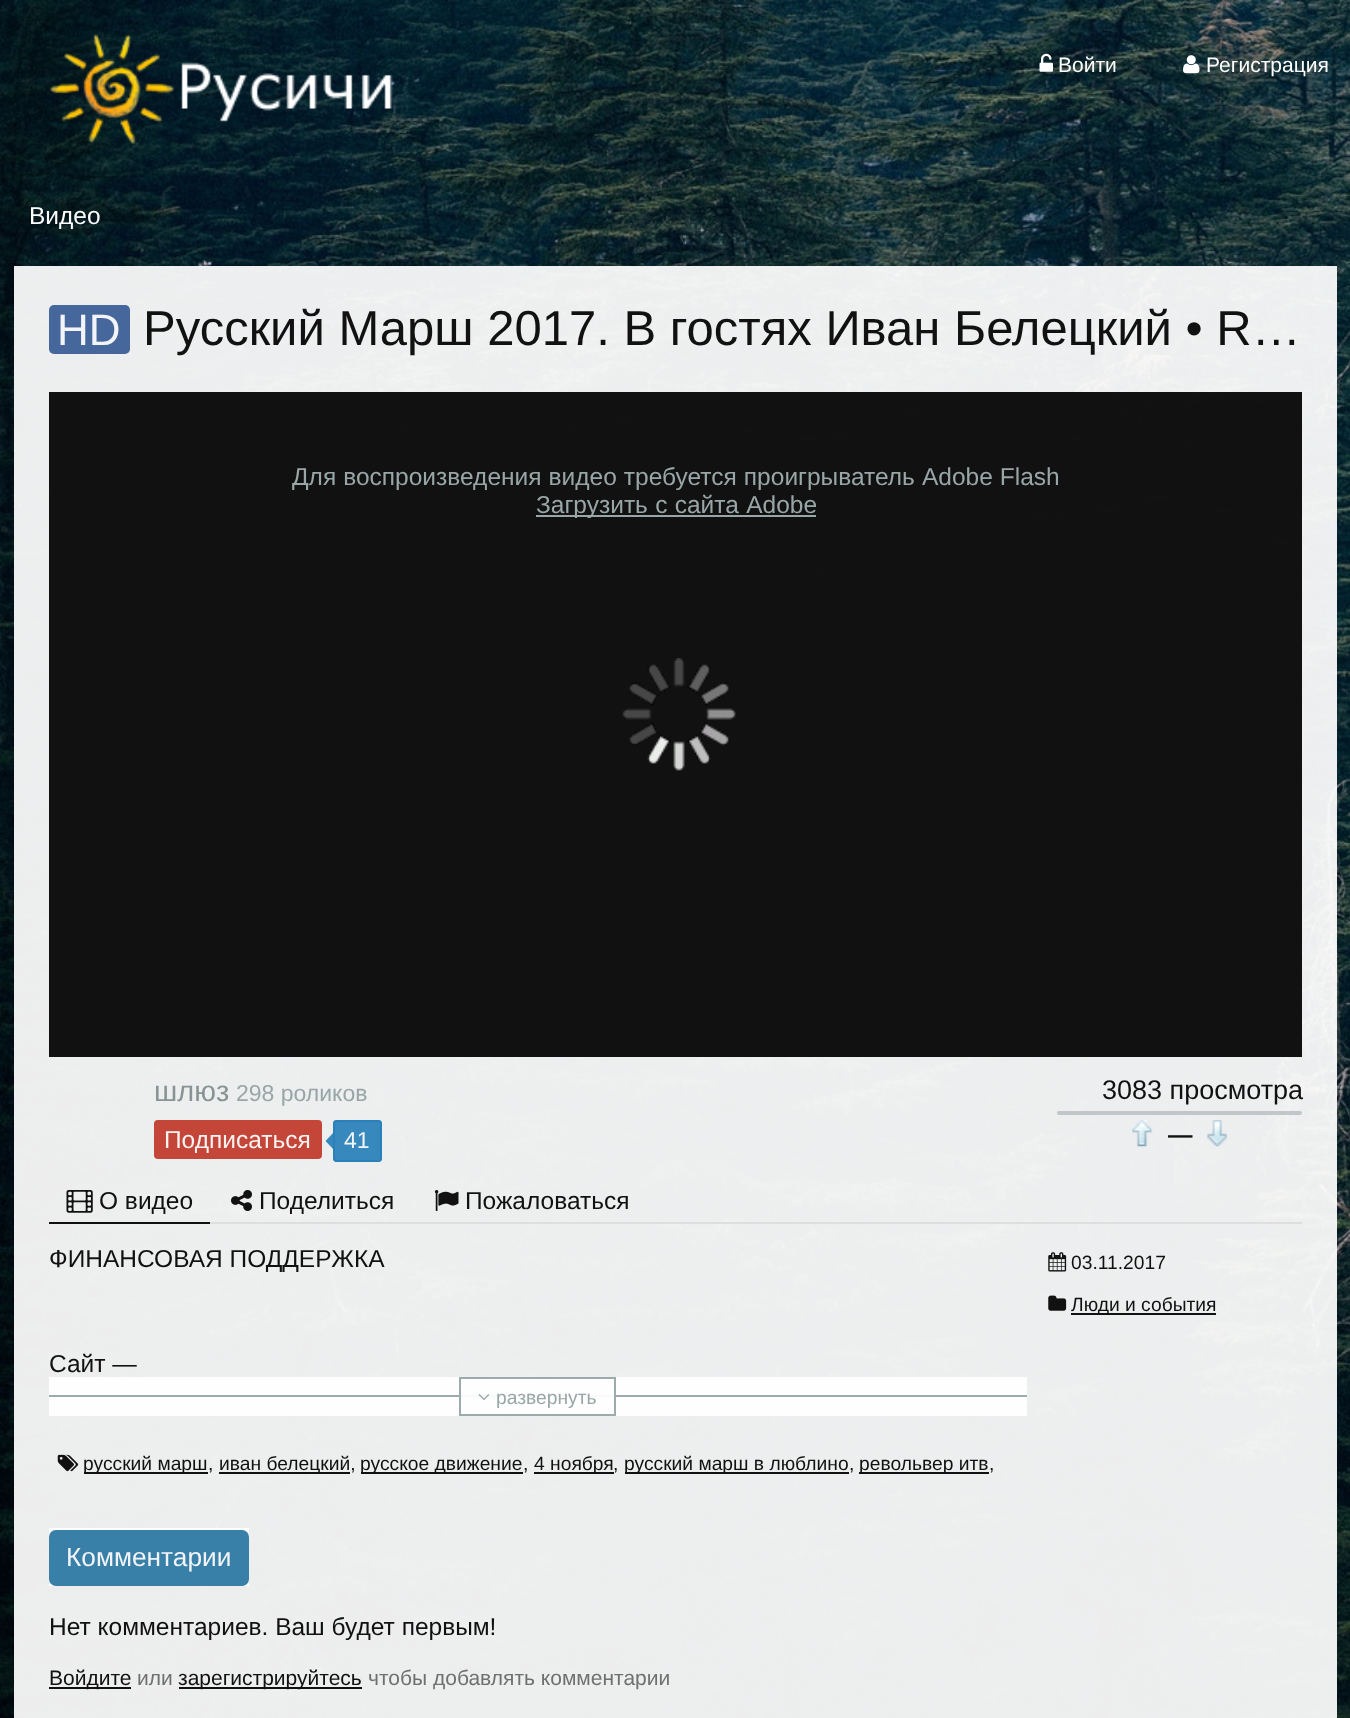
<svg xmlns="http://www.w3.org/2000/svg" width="1350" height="1718">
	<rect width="100%" height="100%" fill="#FFFFFF" />
	<image x="0" y="0" width="1350" height="1718" href="assets/img1.png" />
	<image x="50" y="34" width="343" height="110" href="assets/img2.png" />
	<image x="1039" y="53" width="14" height="19" href="assets/img3.png" />
	<text x="1058" y="72" font-family="Liberation Sans" font-size="21" fill="#FDFDFD">Войти</text>
	<image x="1183" y="55" width="17" height="19" href="assets/img4.png" />
	<text x="1206" y="72" font-family="Liberation Sans" font-size="21" fill="#FDFDFD">Регистрация</text>
	<text x="29" y="224" font-family="Liberation Sans" font-size="24.5" fill="#FDFDFD">Видео</text>
	<rect x="14" y="266" width="1323" height="1452" fill="#FFFFFF" fill-opacity="0.93" />
	<rect x="49" y="305" width="81" height="49" rx="5" fill="#385C94" fill-opacity="0.93" />
	<text x="57" y="345" font-family="Liberation Sans" font-size="44" fill="#F2F4F8">HD</text>
	<text x="143" y="345" font-family="Liberation Sans" font-size="49" fill="#111111">Русский Марш 2017. В гостях Иван Белецкий • R…</text>
	<rect x="49" y="392" width="1253" height="665" fill="#000000" fill-opacity="0.93" />
	<text x="292" y="485" word-spacing="0.25" font-family="Liberation Sans" font-size="24.5" fill="#99A6A7">Для воспроизведения видео требуется проигрыватель Adobe Flash</text>
	<rect x="536" y="515" width="280" height="2" fill="#99A6A7" />
	<text x="536" y="513" word-spacing="0.5" font-family="Liberation Sans" font-size="24.5" fill="#99A6A7">Загрузить с сайта Adobe</text>
	<image x="622" y="658" width="114" height="113" href="assets/img5.png" />
	<text x="154" y="1101" font-family="Liberation Sans" font-size="29" fill="#879394">шлюз</text>
	<text x="236" y="1101" font-family="Liberation Sans" font-size="23" fill="#99A6A7">298 роликов</text>
	<rect x="154" y="1120" width="168" height="39" rx="4" fill="#C0392B" fill-opacity="0.93" />
	<text x="164" y="1148" font-family="Liberation Sans" font-size="24.5" fill="#FBF2F1">Подписаться</text>
	<rect x="333" y="1120" width="49" height="42" rx="4" fill="#3788BD" />
	<rect x="334" y="1121" width="47" height="40" rx="3" fill="none" stroke="#2980B9" stroke-opacity="0.93" stroke-width="2" />
	<path d="M334 1132V1150L325.5 1141Z" fill="#2980B9" fill-opacity="0.93" />
	<text x="344" y="1148" font-family="Liberation Sans" font-size="23" fill="#F2F4F8">41</text>
	<text x="1102" y="1099" font-family="Liberation Sans" font-size="27" fill="#111111">3083 просмотра</text>
	<rect x="1057" y="1111" width="245" height="4" rx="2" fill="#BDC3C7" fill-opacity="0.93" />
	<image x="1132" y="1120" width="21" height="27" href="assets/img6.png" />
	<text x="1168" y="1143" font-family="Liberation Sans" font-size="24.5" font-weight="700" fill="#111111">—</text>
	<image x="1207" y="1120" width="21" height="27" href="assets/img7.png" />
	<rect x="210" y="1222" width="1092" height="2" fill="#DDDDDD" fill-opacity="0.93" />
	<rect x="49" y="1222" width="161" height="2" fill="#101010" />
	<image x="66" y="1190" width="27" height="23" href="assets/img8.png" />
	<text x="99" y="1209" font-family="Liberation Sans" font-size="24.5" fill="#111111">О видео</text>
	<image x="231" y="1190" width="21" height="21" href="assets/img9.png" />
	<text x="259" y="1209" font-family="Liberation Sans" font-size="24.5" fill="#111111">Поделиться</text>
	<image x="434" y="1190" width="25" height="21" href="assets/img10.png" />
	<g font-family="Liberation Sans" font-size="24.5" fill="#111111">
		<text x="465" y="1209">Пожаловаться</text>
		<text x="49" y="1267">ФИНАНСОВАЯ ПОДДЕРЖКА</text>
		<text x="49" y="1372">Сайт —</text>
	</g>
	<rect x="49" y="1377" width="978" height="39" fill="#FFFFFF" fill-opacity="0.93" />
	<rect x="49" y="1395" width="978" height="2" fill="#95A5A6" fill-opacity="0.93" />
	<rect x="459" y="1395" width="157" height="2" fill="#FFFFFF" fill-opacity="0.93" />
	<rect x="460" y="1378" width="155" height="37" fill="none" stroke="#95A5A6" stroke-opacity="0.93" stroke-width="2" />
	<image x="478" y="1394" width="12" height="7" href="assets/img11.png" />
	<text x="496" y="1404" font-family="Liberation Sans" font-size="19.25" fill="#99A6A7">развернуть</text>
	<image x="57" y="1454" width="22" height="18" href="assets/img12.png" />
	<rect x="84" y="1472" width="124" height="2" fill="#000000" fill-opacity="0.93" />
	<g font-family="Liberation Sans" font-size="19.25" fill="#111111">
		<text x="83" y="1470">русский марш</text>
		<text x="208" y="1470">,</text>
	</g>
	<rect x="219" y="1472" width="131" height="2" fill="#111111" />
	<text x="219" y="1470" font-family="Liberation Sans" font-size="19.25" fill="#111111">иван белецкий,</text>
	<rect x="361" y="1472" width="162" height="2" fill="#111111" />
	<g font-family="Liberation Sans" font-size="19.25" fill="#111111">
		<text x="360" y="1470">русское движение</text>
		<text x="523" y="1470">,</text>
	</g>
	<rect x="534" y="1472" width="80" height="2" fill="#111111" />
	<g font-family="Liberation Sans" font-size="19.25" fill="#111111">
		<text x="534" y="1470">4 ноября</text>
		<text x="613" y="1470">,</text>
	</g>
	<rect x="625" y="1472" width="224" height="2" fill="#000000" fill-opacity="0.93" />
	<g font-family="Liberation Sans" font-size="19.25" fill="#111111">
		<text x="624" y="1470">русский марш в люблино</text>
		<text x="849" y="1470">,</text>
	</g>
	<rect x="859" y="1472" width="130" height="2" fill="#111111" />
	<g font-family="Liberation Sans" font-size="19.25" fill="#111111">
		<text x="859" y="1470">револьвер итв</text>
		<text x="989" y="1470">,</text>
	</g>
	<image x="1048" y="1252" width="19" height="20" href="assets/img13.png" />
	<text x="1071" y="1269" font-family="Liberation Sans" font-size="19.25" fill="#111111">03.11.2017</text>
	<image x="1048" y="1295" width="19" height="16" href="assets/img14.png" />
	<rect x="1071" y="1313" width="145" height="2" fill="#111111" />
	<text x="1071" y="1311" font-family="Liberation Sans" font-size="19.25" fill="#111111">Люди и события</text>
	<rect x="49" y="1528" width="200" height="58" fill="#FFFFFF" fill-opacity="0.93" />
	<rect x="49" y="1530" width="200" height="56" rx="7" fill="#3880A7" />
	<text x="66" y="1566" font-family="Liberation Sans" font-size="26.25" fill="#F2F4F8">Комментарии</text>
	<text x="49" y="1635" font-family="Liberation Sans" font-size="24.5" fill="#111111">Нет комментариев. Ваш будет первым!</text>
	<rect x="49" y="1687" width="82" height="2" fill="#111111" />
	<text x="49" y="1685" font-family="Liberation Sans" font-size="21" fill="#111111">Войдите</text>
	<text x="137" y="1685" font-family="Liberation Sans" font-size="21" fill="#6F7070">или</text>
	<rect x="179" y="1687" width="183" height="2" fill="#000000" fill-opacity="0.93" />
	<text x="178" y="1685" font-family="Liberation Sans" font-size="21" fill="#111111">зарегистрируйтесь</text>
	<text x="368" y="1685" font-family="Liberation Sans" font-size="21" fill="#6F7070">чтобы добавлять комментарии</text>
</svg>
